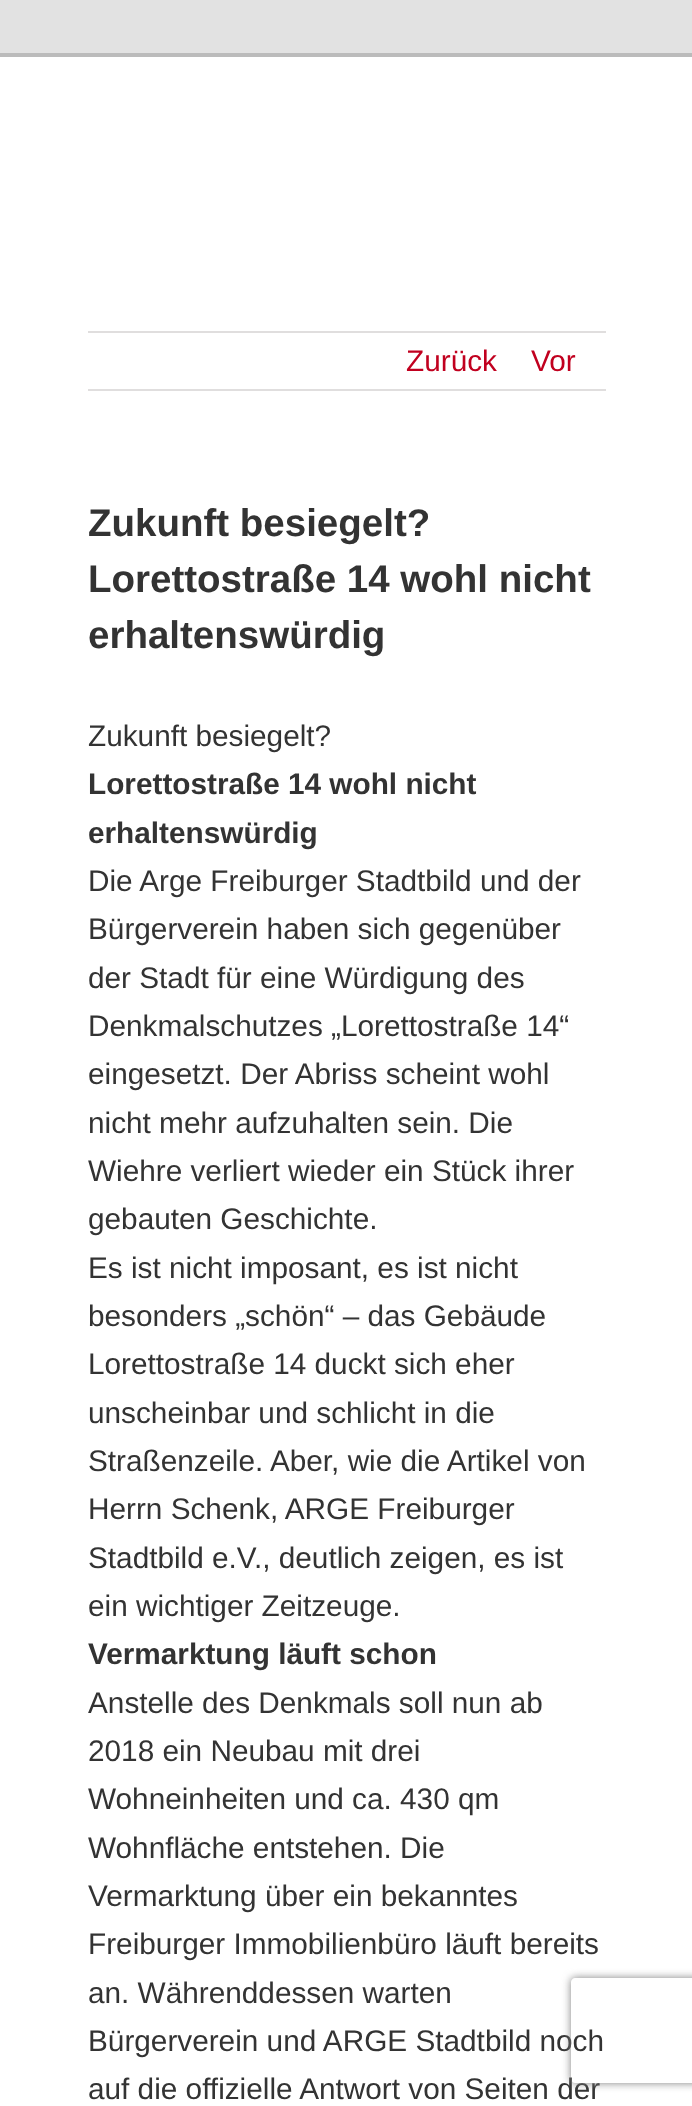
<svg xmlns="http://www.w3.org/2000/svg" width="692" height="2106">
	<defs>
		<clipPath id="clip1"><path d="M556 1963H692V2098H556ZM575 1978H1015C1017 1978 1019 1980 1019 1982V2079C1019 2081 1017 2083 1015 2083H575C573 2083 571 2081 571 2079V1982C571 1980 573 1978 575 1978Z" clip-rule="evenodd" /></clipPath>
	</defs>
	<rect width="100%" height="100%" fill="#E2E2E2" />
	<rect x="0" y="53" width="692" height="4" fill="#BBBBBB" />
	<rect x="0" y="57" width="692" height="2049" fill="#FFFFFF" />
	<rect x="88" y="331" width="518" height="2" fill="#E0DEDE" />
	<rect x="88" y="389" width="518" height="2" fill="#E0DEDE" />
	<g font-family="Liberation Sans" font-size="29.75" fill="#C1001F">
		<text x="406" y="371">Zurück</text>
		<text x="531" y="371">Vor</text>
	</g>
	<g font-family="Liberation Sans" font-size="38.5" font-weight="700" fill="#333333">
		<text x="88" y="536">Zukunft besiegelt?</text>
		<text x="88" y="592">Lorettostraße 14 wohl nicht</text>
		<text x="88" y="648">erhaltenswürdig</text>
	</g>
	<text x="88" y="746" font-family="Liberation Sans" font-size="29.75" fill="#333333">Zukunft besiegelt?</text>
	<g font-family="Liberation Sans" font-size="29.75" font-weight="700" fill="#333333">
		<text x="88" y="794">Lorettostraße 14 wohl nicht</text>
		<text x="88" y="843">erhaltenswürdig</text>
	</g>
	<g font-family="Liberation Sans" font-size="29.75" fill="#333333">
		<text x="88" y="891">Die Arge Freiburger Stadtbild und der</text>
		<text x="88" y="939">Bürgerverein haben sich gegenüber</text>
		<text x="88" y="988">der Stadt für eine Würdigung des</text>
		<text x="88" y="1036">Denkmalschutzes „Lorettostraße 14“</text>
		<text x="88" y="1084">eingesetzt. Der Abriss scheint wohl</text>
		<text x="88" y="1133">nicht mehr aufzuhalten sein. Die</text>
		<text x="88" y="1181">Wiehre verliert wieder ein Stück ihrer</text>
		<text x="88" y="1229">gebauten Geschichte.</text>
		<text x="88" y="1278">Es ist nicht imposant, es ist nicht</text>
		<text x="88" y="1326">besonders „schön“ – das Gebäude</text>
		<text x="88" y="1374">Lorettostraße 14 duckt sich eher</text>
		<text x="88" y="1423">unscheinbar und schlicht in die</text>
		<text x="88" y="1471">Straßenzeile. Aber, wie die Artikel von</text>
		<text x="88" y="1519">Herrn Schenk, ARGE Freiburger</text>
		<text x="88" y="1568">Stadtbild e.V., deutlich zeigen, es ist</text>
		<text x="88" y="1616">ein wichtiger Zeitzeuge.</text>
	</g>
	<text x="88" y="1664" font-family="Liberation Sans" font-size="29.75" font-weight="700" fill="#333333">Vermarktung läuft schon</text>
	<g font-family="Liberation Sans" font-size="29.75" fill="#333333">
		<text x="88" y="1713">Anstelle des Denkmals soll nun ab</text>
		<text x="88" y="1761">2018 ein Neubau mit drei</text>
		<text x="88" y="1809">Wohneinheiten und ca. 430 qm</text>
		<text x="88" y="1858">Wohnfläche entstehen. Die</text>
		<text x="88" y="1906">Vermarktung über ein bekanntes</text>
		<text x="88" y="1954">Freiburger Immobilienbüro läuft bereits</text>
		<text x="88" y="2003">an. Währenddessen warten</text>
		<text x="88" y="2051">Bürgerverein und ARGE Stadtbild noch</text>
		<text x="88" y="2099">auf die offizielle Antwort von Seiten der</text>
	</g>
	<g clip-path="url(#clip1)">
		<rect x="571" y="1978" width="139" height="105" rx="4" fill="#808080" filter="blur(4.5px)" />
	</g>
</svg>
